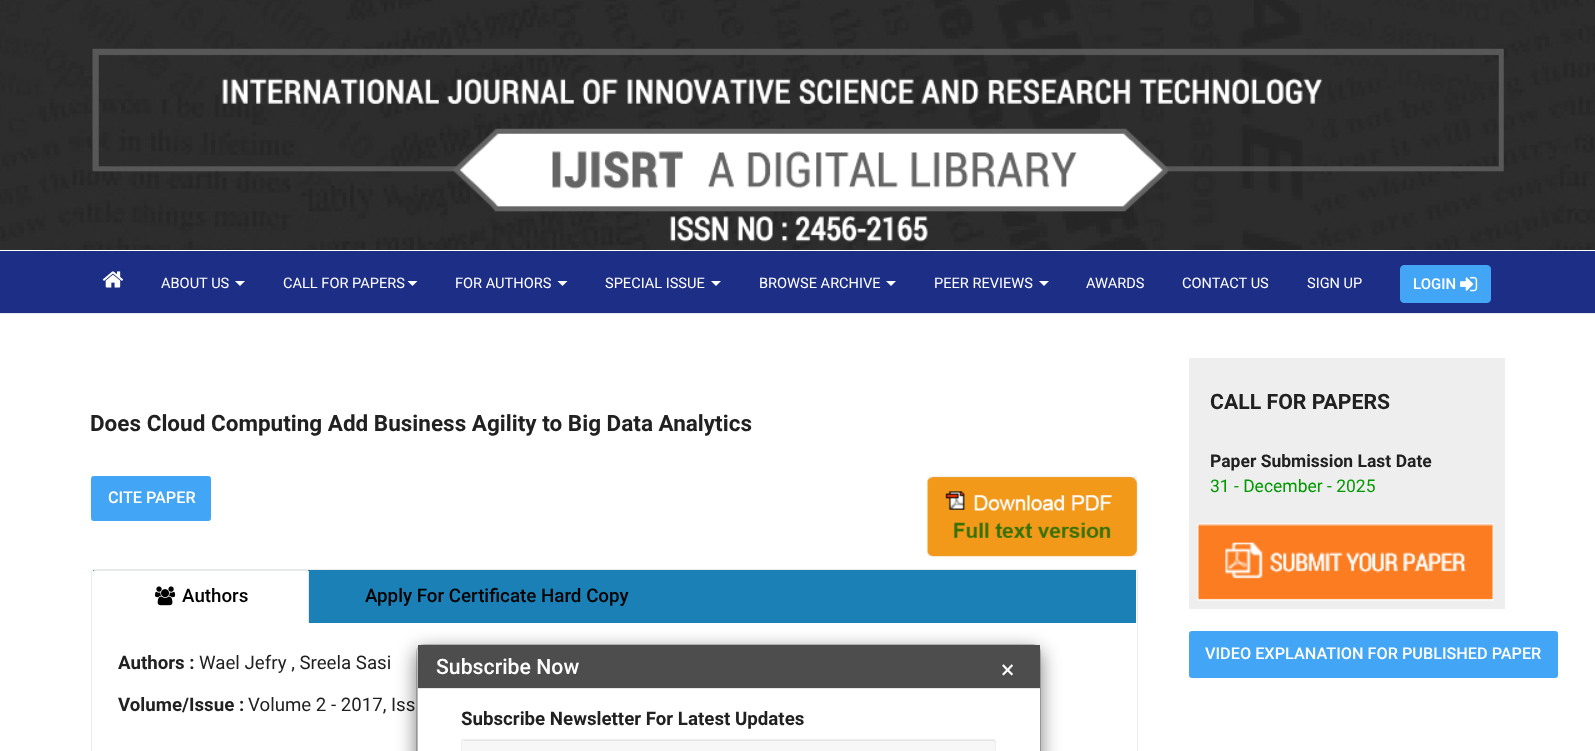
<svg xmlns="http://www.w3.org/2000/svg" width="1595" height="751">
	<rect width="100%" height="100%" fill="#FFFFFF" />
	<image x="0" y="0" width="1595" height="250" href="assets/img1.png" />
	<image x="92" y="48" width="1412" height="194" href="assets/img2.png" />
	<rect x="0" y="251" width="1595" height="62" fill="#1D2E86" />
	<rect x="0" y="313" width="1595" height="1" fill="#E2E9E6" />
	<image x="102" y="271" width="21" height="17" href="assets/img3.png" />
	<text x="161" y="288" font-family="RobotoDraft" font-size="14.6" fill="#FFFFFF">ABOUT US</text>
	<path d="M235 281H245L240 286Z" fill="#FFFFFF" />
	<text x="283" y="288" font-family="RobotoDraft" font-size="14.6" fill="#FFFFFF">CALL FOR PAPERS</text>
	<path d="M407.5 281H417.5L412.5 286Z" fill="#FFFFFF" />
	<text x="455" y="288" font-family="RobotoDraft" font-size="14.6" fill="#FFFFFF">FOR AUTHORS</text>
	<path d="M557.5 281H567.5L562.5 286Z" fill="#FFFFFF" />
	<text x="605" y="288" font-family="RobotoDraft" font-size="14.6" fill="#FFFFFF">SPECIAL ISSUE</text>
	<path d="M711 281H721L716 286Z" fill="#FFFFFF" />
	<text x="759" y="288" font-family="RobotoDraft" font-size="14.6" fill="#FFFFFF">BROWSE ARCHIVE</text>
	<path d="M886 281H896L891 286Z" fill="#FFFFFF" />
	<text x="934" y="288" font-family="RobotoDraft" font-size="14.6" fill="#FFFFFF">PEER REVIEWS</text>
	<path d="M1039 281H1049L1044 286Z" fill="#FFFFFF" />
	<g font-family="RobotoDraft" font-size="14.6" fill="#FFFFFF">
		<text x="1086" y="288">AWARDS</text>
		<text x="1182" y="288">CONTACT US</text>
		<text x="1307" y="288">SIGN UP</text>
	</g>
	<rect x="1400.5" y="265.5" width="90" height="37" rx="3.5" fill="#42A5F5" stroke="#42A5F5" />
	<text x="1413" y="289" font-family="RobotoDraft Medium" font-size="15" font-weight="500" fill="#FFFFFF">LOGIN</text>
	<image x="1460" y="276" width="18" height="16" href="assets/img4.png" />
	<text x="90" y="431" font-family="RobotoDraft" font-size="22.5" font-weight="700" fill="#212121">Does Cloud Computing Add Business Agility to Big Data Analytics</text>
	<rect x="91.5" y="476.5" width="119" height="44" rx="2" fill="#42A5F5" stroke="#42A5F5" />
	<text x="108" y="503" font-family="RobotoDraft Medium" font-size="16.25" font-weight="500" fill="#FFFFFF">CITE PAPER</text>
	<image x="927" y="476" width="211" height="81" href="assets/img5.png" />
	<rect x="91.5" y="569.5" width="1046" height="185" rx="2" fill="none" stroke="#EBEAEA" />
	<rect x="93" y="570" width="1043" height="53" fill="#1A80B6" />
	<path d="M95.5 570H306.5C308 570 309 571 309 572.5V623H93V572.5C93 571 94 570 95.5 570Z" fill="#FFFFFF" />
	<path d="M95 570L93 571L94 572L95 571H306H307H308L306 570Z" fill="#E2E9E6" />
	<path d="M308 571H309V624L307 622H308V572L307 571Z" fill="#E2E9E6" />
	<image x="155" y="586" width="21" height="20" href="assets/img6.png" />
	<g font-family="RobotoDraft Medium" font-size="18.75" font-weight="500" fill="#000000">
		<text x="182" y="602">Authors</text>
		<text x="365" y="602">Apply For Certificate Hard Copy</text>
	</g>
	<text x="118" y="669" font-family="RobotoDraft" font-size="18.7" font-weight="700" fill="#212121">Authors :</text>
	<text x="199" y="669" font-family="RobotoDraft" font-size="18.7" fill="#212121">Wael Jefry , Sreela Sasi</text>
	<text x="118" y="711" font-family="RobotoDraft" font-size="18.7" font-weight="700" fill="#212121">Volume/Issue :</text>
	<text x="248" y="711" font-family="RobotoDraft" font-size="18.7" fill="#212121">Volume 2 - 2017, Iss</text>
	<rect x="1189" y="358" width="316" height="251" fill="#EEEEEE" />
	<text x="1210" y="409" font-family="RobotoDraft" font-size="21.25" font-weight="700" fill="#212121">CALL FOR PAPERS</text>
	<text x="1210" y="467" font-family="RobotoDraft" font-size="17.5" font-weight="700" fill="#212121">Paper Submission Last Date</text>
	<text x="1210" y="492" font-family="RobotoDraft" font-size="17.5" fill="#009900">31 - December - 2025</text>
	<image x="1197" y="523" width="297" height="78" href="assets/img7.png" />
	<rect x="1189.5" y="631.5" width="368" height="46" rx="2" fill="#42A5F5" stroke="#42A5F5" />
	<text x="1205" y="659" font-family="RobotoDraft Medium" font-size="16.25" font-weight="500" fill="#FFFFFF">VIDEO EXPLANATION FOR PUBLISHED PAPER</text>
	<rect x="416" y="650" width="625" height="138" rx="8" fill="#000000" fill-opacity="0.5" filter="blur(9.5px)" />
	<rect x="418" y="689" width="622" height="62" fill="#FFFFFF" />
	<rect x="416.5" y="644.5" width="624" height="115" rx="7.5" fill="none" stroke="#000000" stroke-opacity="0.2" />
	<rect x="418" y="645" width="622" height="43" fill="#4D4D4D" />
	<rect x="418" y="688" width="622" height="1" fill="#E5E5E5" />
	<text x="436" y="674" font-family="RobotoDraft Medium" font-size="21.25" font-weight="500" fill="#FFFFFF">Subscribe Now</text>
	<text x="1001" y="678" font-family="RobotoDraft" font-size="25" fill="#FFFFFF">×</text>
	<text x="461" y="725" font-family="RobotoDraft" font-size="18.7" font-weight="700" fill="#212121">Subscribe Newsletter For Latest Updates</text>
	<rect x="461" y="739" width="535" height="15" rx="2.5" fill="#F7F7F7" />
	<path d="M464 741H994L995 742V741L994 740H464C463 740 463 741 463 741Z" fill="#E4E4E4" />
	<rect x="461.5" y="739.5" width="534" height="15" rx="2" fill="none" stroke="#EFEFEF" />
</svg>
